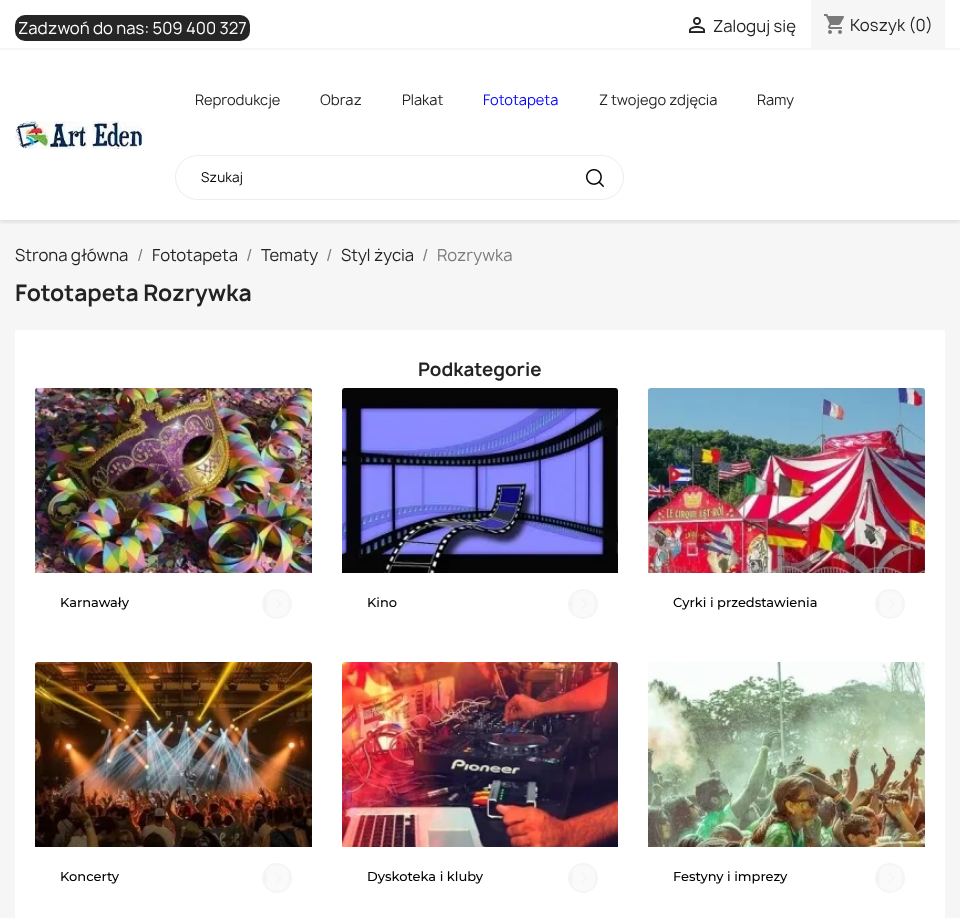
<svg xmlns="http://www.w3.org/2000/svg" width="960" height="918">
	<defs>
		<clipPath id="clip1"><rect x="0" y="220" width="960" height="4" /></clipPath>
	</defs>
	<rect width="100%" height="100%" fill="#FFFFFF" />
	<rect x="0" y="220" width="960" height="698" fill="#F6F6F6" />
	<g clip-path="url(#clip1)">
		<rect x="0" y="2" width="960" height="220" fill="#000000" fill-opacity="0.11" filter="blur(2.5px)" />
	</g>
	<rect x="0" y="48" width="960" height="2" fill="#F6F6F6" />
	<rect x="15" y="15" width="235" height="26" rx="10" fill="#262626" />
	<text x="18" y="34" font-family="Manrope" font-size="16" fill="#FFFFFF">Zadzwoń do nas: 509 400 327</text>
	<image x="689" y="17" width="16" height="16" href="assets/img1.png" />
	<text x="713" y="32" font-family="Manrope" font-size="16" fill="#232323">Zaloguj się</text>
	<rect x="811" y="0" width="134" height="48" fill="#F6F6F6" />
	<image x="824" y="14" width="20" height="20" href="assets/img2.png" />
	<text x="850" y="31" font-family="Manrope" font-size="16" fill="#232323">Koszyk (0)</text>
	<image x="15" y="121" width="130" height="28" href="assets/img3.png" />
	<g font-family="Manrope" font-size="14" fill="#232323">
		<text x="195" y="105">Reprodukcje</text>
		<text x="320" y="105">Obraz</text>
		<text x="402" y="105">Plakat</text>
	</g>
	<text x="483" y="105" font-family="Manrope" font-size="14" fill="#0000FF">Fototapeta</text>
	<g font-family="Manrope" font-size="14" fill="#232323">
		<text x="599" y="105">Z twojego zdjęcia</text>
		<text x="757" y="105">Ramy</text>
	</g>
	<rect x="175.5" y="155.5" width="448" height="44" rx="22" fill="none" stroke="#EDEDED" />
	<text x="201" y="182" font-family="Manrope" font-size="13" fill="#000000">Szukaj</text>
	<image x="586" y="169" width="18" height="18" href="assets/img4.png" />
	<text x="15" y="261" font-family="Manrope" font-size="16" fill="#232323">Strona główna</text>
	<text x="137" y="261" font-family="Manrope" font-size="16" fill="#7A7A7A">/</text>
	<text x="152" y="261" font-family="Manrope" font-size="16" fill="#232323">Fototapeta</text>
	<text x="246" y="261" font-family="Manrope" font-size="16" fill="#7A7A7A">/</text>
	<text x="261" y="261" font-family="Manrope" font-size="16" fill="#232323">Tematy</text>
	<text x="326" y="261" font-family="Manrope" font-size="16" fill="#7A7A7A">/</text>
	<text x="341" y="261" font-family="Manrope" font-size="16" fill="#232323">Styl życia</text>
	<g font-family="Manrope" font-size="16" fill="#7A7A7A">
		<text x="422" y="261">/</text>
		<text x="437" y="261">Rozrywka</text>
	</g>
	<text x="15" y="301" font-family="Manrope" font-size="22" font-weight="700" fill="#232323">Fototapeta Rozrywka</text>
	<rect x="15" y="330" width="930" height="588" fill="#FFFFFF" />
	<text x="418" y="376" font-family="Manrope" font-size="18" font-weight="700" fill="#232323">Podkategorie</text>
	<image x="35" y="388" width="277" height="185" href="assets/img5.png" />
	<text x="60" y="607" font-family="Montserrat" font-size="13" font-weight="500" fill="#000000">Karnawały</text>
	<circle cx="277" cy="604" r="15" fill="#F3F5F7" />
	<image x="264" y="591" width="25" height="26" href="assets/img6.png" />
	<image x="342" y="388" width="276" height="185" href="assets/img7.png" />
	<text x="367" y="607" font-family="Montserrat" font-size="13" font-weight="500" fill="#000000">Kino</text>
	<circle cx="583" cy="604" r="15" fill="#F3F5F7" />
	<image x="570" y="591" width="25" height="26" href="assets/img6.png" />
	<image x="648" y="388" width="277" height="185" href="assets/img8.png" />
	<text x="673" y="607" font-family="Montserrat" font-size="13" font-weight="500" fill="#000000">Cyrki i przedstawienia</text>
	<circle cx="890" cy="604" r="15" fill="#F3F5F7" />
	<image x="877" y="591" width="25" height="26" href="assets/img6.png" />
	<image x="35" y="662" width="277" height="185" href="assets/img9.png" />
	<text x="60" y="881" font-family="Montserrat" font-size="13" font-weight="500" fill="#000000">Koncerty</text>
	<circle cx="277" cy="878" r="15" fill="#F3F5F7" />
	<image x="264" y="865" width="25" height="26" href="assets/img6.png" />
	<image x="342" y="662" width="276" height="185" href="assets/img10.png" />
	<text x="367" y="881" font-family="Montserrat" font-size="13" font-weight="500" fill="#000000">Dyskoteka i kluby</text>
	<circle cx="583" cy="878" r="15" fill="#F3F5F7" />
	<image x="570" y="865" width="25" height="26" href="assets/img6.png" />
	<image x="648" y="662" width="277" height="185" href="assets/img11.png" />
	<text x="673" y="881" font-family="Montserrat" font-size="13" font-weight="500" fill="#000000">Festyny i imprezy</text>
	<circle cx="890" cy="878" r="15" fill="#F3F5F7" />
	<image x="877" y="865" width="25" height="26" href="assets/img6.png" />
</svg>
